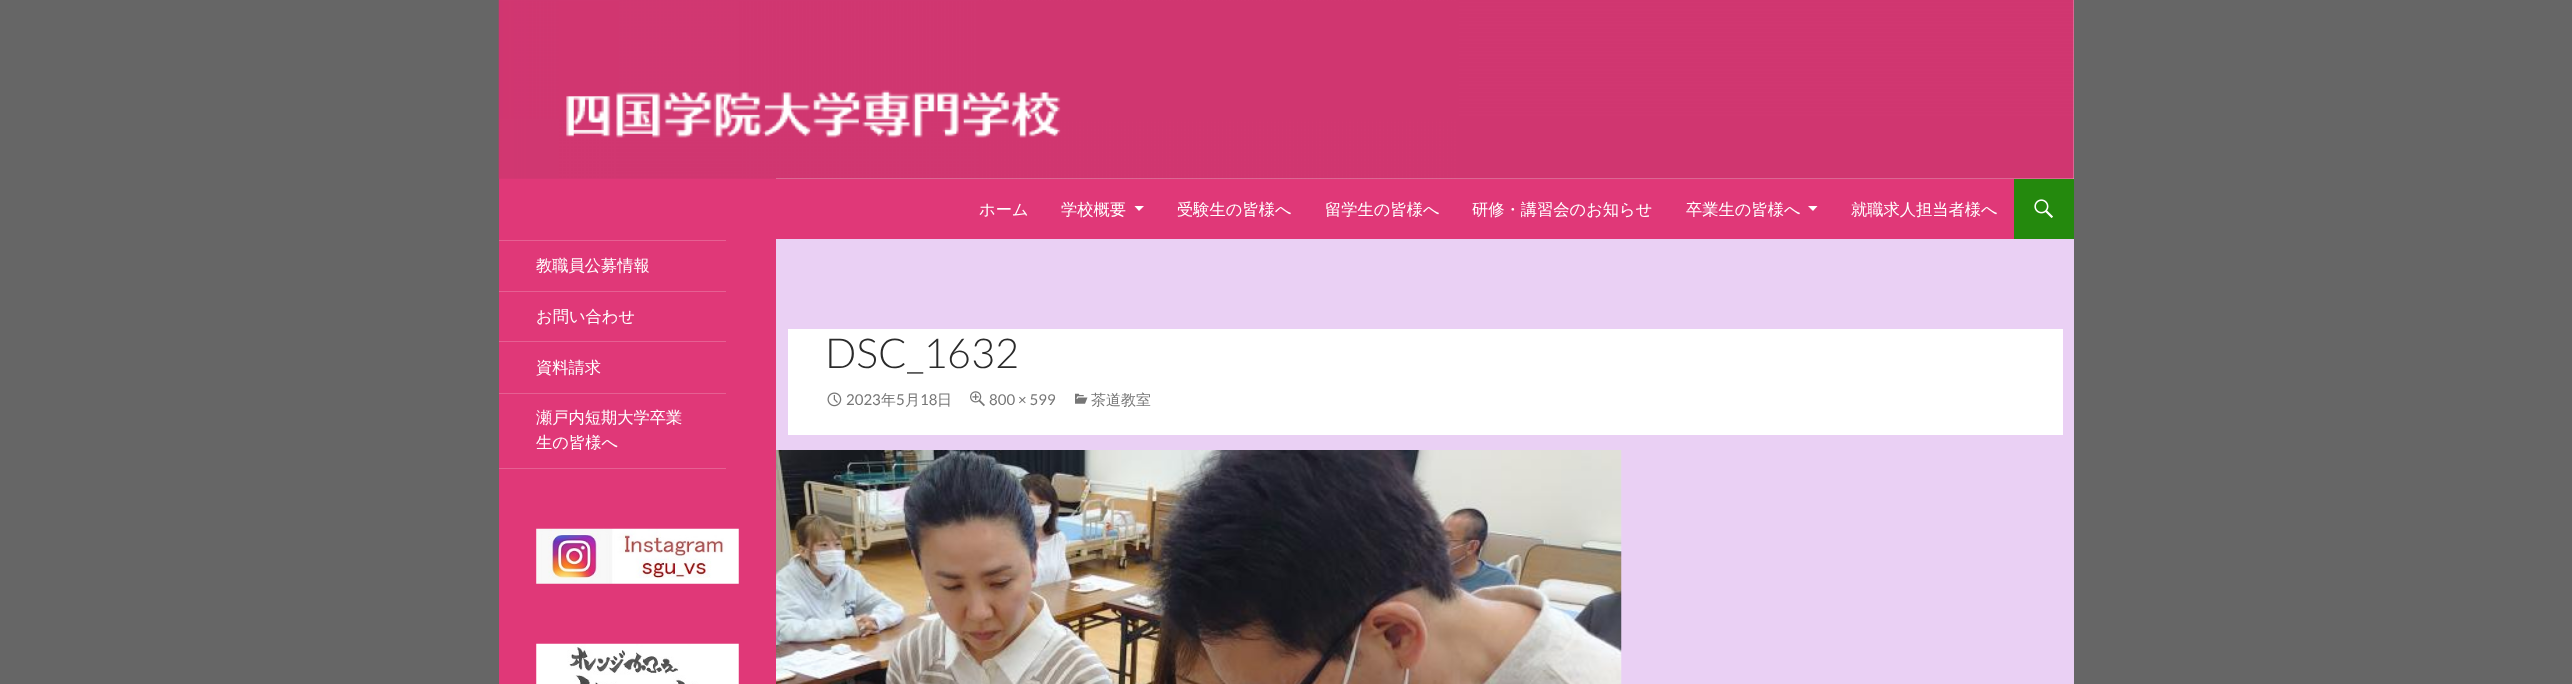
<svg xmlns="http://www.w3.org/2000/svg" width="2572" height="684">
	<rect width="100%" height="100%" fill="#666666" />
	<rect x="776" y="0" width="1298" height="179" fill="#FFFFFF" />
	<rect x="499" y="178" width="277" height="506" fill="#E03878" />
	<image x="498" y="0" width="1576" height="179" href="assets/img1.png" />
	<rect x="776" y="179" width="1238" height="60" fill="#E03878" />
	<g font-family="WenQuanYi Zen Hei" font-size="16.25" font-weight="500" fill="#FFFFFF">
		<text x="979" y="215">ホーム</text>
		<text x="1061" y="215">学校概要</text>
	</g>
	<path d="M1134.5 206L1139 211L1144 206Z" fill="#FFFFFF" />
	<g font-family="WenQuanYi Zen Hei" font-size="16.25" font-weight="500" fill="#FFFFFF">
		<text x="1177" y="215">受験生の皆様へ</text>
		<text x="1325" y="215">留学生の皆様へ</text>
		<text x="1472" y="215">研修・講習会のお知らせ</text>
		<text x="1686" y="215">卒業生の皆様へ</text>
	</g>
	<path d="M1808 206L1813 211L1817.5 206Z" fill="#FFFFFF" />
	<text x="1851" y="215" font-family="WenQuanYi Zen Hei" font-size="16.25" font-weight="500" fill="#FFFFFF">就職求人担当者様へ</text>
	<rect x="2014" y="179" width="60" height="60" fill="#24890D" />
	<image x="2034" y="199" width="19" height="19" href="assets/img2.png" />
	<rect x="776" y="239" width="1298" height="445" fill="#EAD0F4" />
	<rect x="499" y="468" width="227" height="1" fill="#E66093" />
	<rect x="499" y="240" width="227" height="1" fill="#E66093" />
	<text x="536" y="271" font-family="WenQuanYi Zen Hei" font-size="16.25" font-weight="500" fill="#FFFFFF">教職員公募情報</text>
	<rect x="499" y="291" width="227" height="1" fill="#E66093" />
	<text x="536" y="322" font-family="WenQuanYi Zen Hei" font-size="16.25" font-weight="500" fill="#FFFFFF">お問い合わせ</text>
	<rect x="499" y="341" width="227" height="1" fill="#E66093" />
	<text x="536" y="373" font-family="WenQuanYi Zen Hei" font-size="16.25" font-weight="500" fill="#FFFFFF">資料請求</text>
	<rect x="499" y="393" width="227" height="1" fill="#E66093" />
	<g font-family="WenQuanYi Zen Hei" font-size="16.25" font-weight="500" fill="#FFFFFF">
		<text x="536" y="423">瀬戸内短期大学卒業</text>
		<text x="536" y="448">生の皆様へ</text>
	</g>
	<image x="536" y="528" width="203" height="56" href="assets/img3.png" />
	<image x="536" y="643" width="203" height="41" href="assets/img4.png" />
	<rect x="788" y="329" width="1275" height="106" fill="#FFFFFF" />
	<text x="825" y="368" font-family="Lato" font-size="41.25" font-weight="300" fill="#2B2B2B">DSC_1632</text>
	<image x="827" y="392" width="15" height="15" href="assets/img5.png" />
	<text x="846" y="405" font-family="Lato" font-size="15" fill="#767676">2023</text>
	<text x="881" y="405" font-family="WenQuanYi Zen Hei" font-size="15" font-weight="500" fill="#767676">年</text>
	<text x="896" y="405" font-family="Lato" font-size="15" fill="#767676">5</text>
	<text x="905" y="405" font-family="WenQuanYi Zen Hei" font-size="15" font-weight="500" fill="#767676">月</text>
	<text x="920" y="405" font-family="Lato" font-size="15" fill="#767676">18</text>
	<text x="937" y="405" font-family="WenQuanYi Zen Hei" font-size="15" font-weight="500" fill="#767676">日</text>
	<image x="970" y="391" width="15" height="16" href="assets/img6.png" />
	<text x="989" y="405" font-family="Lato" font-size="15" fill="#767676">800 × 599</text>
	<image x="1075" y="393" width="13" height="11" href="assets/img7.png" />
	<text x="1091" y="405" font-family="WenQuanYi Zen Hei" font-size="15" font-weight="500" fill="#767676">茶道教室</text>
	<image x="776" y="450" width="846" height="234" href="assets/img8.png" />
</svg>
